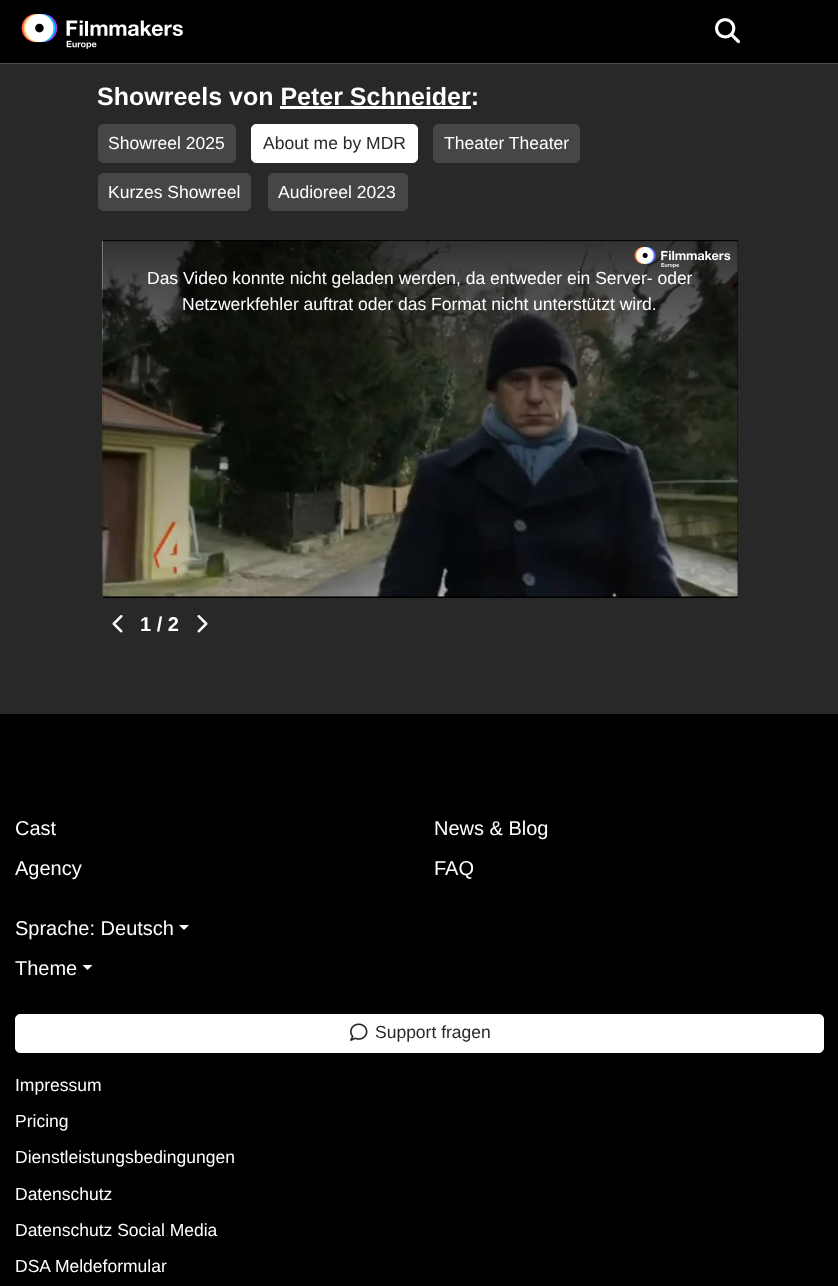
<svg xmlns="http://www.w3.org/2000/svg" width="838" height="1286">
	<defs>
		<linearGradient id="g1" gradientUnits="userSpaceOnUse" x1="420" y1="240" x2="420" y2="598"><stop offset="0" stop-color="#000000" stop-opacity="0.8" /><stop offset="1" stop-color="#000000" stop-opacity="0" /></linearGradient>
	</defs>
	<rect width="100%" height="100%" fill="#282828" />
	<rect x="0" y="0" width="838" height="63" fill="#000000" />
	<rect x="0" y="63" width="838" height="1" fill="#495057" />
	<image x="21" y="14" width="162" height="35" href="assets/img1.png" />
	<image x="715" y="18" width="25" height="26" href="assets/img2.png" />
	<text x="97" y="105" font-family="Liberation Sans" font-size="25" font-weight="700" fill="#FFFFFF">Showreels von Peter Schneider:</text>
	<rect x="280" y="106" width="191" height="3" fill="#FFFFFF" />
	<rect x="98.5" y="124.5" width="137" height="38" rx="4.5" fill="#464646" stroke="#464646" />
	<text x="108" y="149" font-family="Liberation Sans" font-size="17.5" fill="#FFFFFF">Showreel 2025</text>
	<rect x="251.5" y="124.5" width="166" height="38" rx="4.5" fill="#FFFFFF" stroke="#FFFFFF" />
	<text x="263" y="149" font-family="Liberation Sans" font-size="17.5" fill="#282828">About me by MDR</text>
	<rect x="433.5" y="124.5" width="146" height="38" rx="4.5" fill="#464646" stroke="#464646" />
	<text x="444" y="149" font-family="Liberation Sans" font-size="17.5" fill="#FFFFFF">Theater Theater</text>
	<rect x="98.5" y="173.5" width="152" height="37" rx="4.5" fill="#464646" stroke="#464646" />
	<text x="108" y="198" font-family="Liberation Sans" font-size="17.5" fill="#FFFFFF">Kurzes Showreel</text>
	<rect x="268.5" y="173.5" width="139" height="37" rx="4.5" fill="#464646" stroke="#464646" />
	<text x="278" y="198" font-family="Liberation Sans" font-size="17.5" fill="#FFFFFF">Audioreel 2023</text>
	<rect x="103" y="240" width="635" height="358" fill="#000000" />
	<image x="102" y="240" width="636" height="357" href="assets/img3.png" />
	<image x="102" y="240" width="636" height="357" href="assets/img4.png" />
	<rect x="103" y="240" width="635" height="348" fill="url(#g1)" />
	<image x="634" y="247" width="97" height="21" href="assets/img5.png" />
	<g font-family="Liberation Sans" font-size="17.5" fill="#FFFFFF">
		<text x="147" y="284">Das Video konnte nicht geladen werden, da entweder ein Server- oder</text>
		<text x="182" y="310">Netzwerkfehler auftrat oder das Format nicht unterstützt wird.</text>
	</g>
	<image x="112" y="615" width="11" height="18" href="assets/img6.png" />
	<text x="140" y="631" font-family="Liberation Sans" font-size="20" font-weight="700" fill="#FFFFFF">1 / 2</text>
	<image x="197" y="615" width="11" height="18" href="assets/img7.png" />
	<rect x="0" y="714" width="838" height="572" fill="#000000" />
	<g font-family="Liberation Sans" font-size="20" fill="#FFFFFF">
		<text x="15" y="835">Cast</text>
		<text x="15" y="875">Agency</text>
		<text x="434" y="835">News &amp; Blog</text>
		<text x="434" y="875">FAQ</text>
		<text x="15" y="935">Sprache: Deutsch</text>
	</g>
	<path d="M179 925H189L184 930Z" fill="#FFFFFF" />
	<text x="15" y="975" font-family="Liberation Sans" font-size="20" fill="#FFFFFF">Theme</text>
	<path d="M82.5 965H92.5L87.5 970Z" fill="#FFFFFF" />
	<rect x="15.5" y="1014.5" width="808" height="38" rx="4.5" fill="#FFFFFF" stroke="#FFFFFF" />
	<image x="350" y="1023" width="18" height="18" href="assets/img8.png" />
	<text x="375" y="1038" font-family="Liberation Sans" font-size="17.5" fill="#282828">Support fragen</text>
	<g font-family="Liberation Sans" font-size="17.5" fill="#FFFFFF">
		<text x="15" y="1091">Impressum</text>
		<text x="15" y="1127">Pricing</text>
		<text x="15" y="1163">Dienstleistungsbedingungen</text>
		<text x="15" y="1200">Datenschutz</text>
		<text x="15" y="1236">Datenschutz Social Media</text>
		<text x="15" y="1272">DSA Meldeformular</text>
	</g>
</svg>
